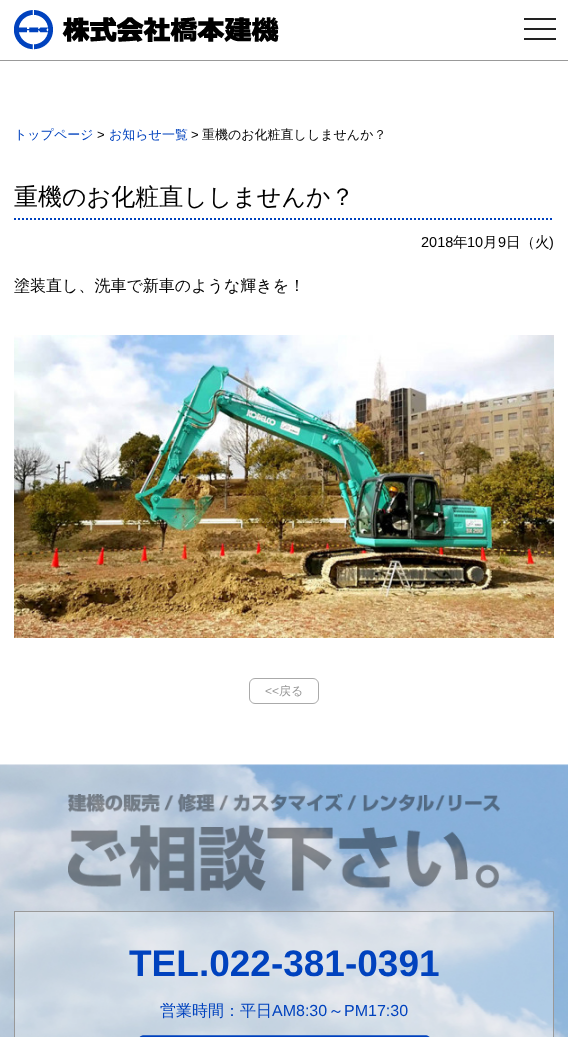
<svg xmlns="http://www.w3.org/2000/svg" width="568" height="1037">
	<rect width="100%" height="100%" fill="#FFFFFF" />
	<rect x="0" y="60" width="568" height="1" fill="#999999" />
	<image x="14" y="10" width="265" height="40" href="assets/img1.png" />
	<rect x="524" y="28" width="32" height="2" fill="#222222" />
	<rect x="524" y="18" width="32" height="2" fill="#222222" />
	<rect x="524" y="38" width="32" height="2" fill="#222222" />
	<text x="14" y="139" font-family="WenQuanYi Zen Hei" font-size="13" font-weight="500" fill="#0042BE">トップページ</text>
	<text x="97" y="139" font-family="Liberation Sans" font-size="13" fill="#000000">&gt;</text>
	<text x="109" y="139" font-family="WenQuanYi Zen Hei" font-size="13" font-weight="500" fill="#0042BE">お知らせ一覧</text>
	<text x="191" y="139" font-family="Liberation Sans" font-size="13" fill="#000000">&gt;</text>
	<text x="202" y="139" font-family="WenQuanYi Zen Hei" font-size="13" font-weight="500" fill="#000000">重機のお化粧直ししませんか？</text>
	<path d="M14 219H554" fill="none" stroke="#0042BE" stroke-width="2" stroke-dasharray="2 2" />
	<text x="14" y="205" font-family="WenQuanYi Zen Hei" font-size="24" font-weight="500" fill="#000000">重機のお化粧直ししませんか？</text>
	<text x="421" y="247" font-family="Liberation Sans" font-size="14.5" fill="#000000">2018</text>
	<text x="453" y="247" font-family="WenQuanYi Zen Hei" font-size="14.5" font-weight="500" fill="#000000">年</text>
	<text x="467" y="247" font-family="Liberation Sans" font-size="14.5" fill="#000000">10</text>
	<text x="483" y="247" font-family="WenQuanYi Zen Hei" font-size="14.5" font-weight="500" fill="#000000">月</text>
	<text x="498" y="247" font-family="Liberation Sans" font-size="14.5" fill="#000000">9</text>
	<text x="506" y="247" font-family="WenQuanYi Zen Hei" font-size="14.5" font-weight="500" fill="#000000">日（火</text>
	<text x="549" y="247" font-family="Liberation Sans" font-size="14.5" fill="#000000">)</text>
	<text x="14" y="291" font-family="WenQuanYi Zen Hei" font-size="16" font-weight="500" fill="#000000">塗装直し、洗車で新車のような輝きを！</text>
	<image x="14" y="335" width="540" height="303" href="assets/img2.png" />
	<rect x="249.5" y="678.5" width="69" height="25" rx="5.5" fill="none" stroke="#AAAAAA" />
	<text x="265" y="695" font-family="Liberation Sans" font-size="12" fill="#999999">&lt;&lt;</text>
	<text x="279" y="695" font-family="WenQuanYi Zen Hei" font-size="12" font-weight="500" fill="#999999">戻る</text>
	<image x="0" y="764" width="568" height="273" href="assets/img3.png" />
	<image x="68" y="794" width="432" height="97" href="assets/img4.png" />
	<rect x="14.5" y="911.5" width="539" height="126" fill="#FFFFFF" fill-opacity="0.3" stroke="#999999" />
	<text x="129" y="976" font-family="Liberation Sans" font-size="37" font-weight="700" fill="#0042BE">TEL.022-381-0391</text>
	<text x="160" y="1016" font-family="WenQuanYi Zen Hei" font-size="16" font-weight="500" fill="#0042BE">営業時間：平日</text>
	<text x="272" y="1016" font-family="Liberation Sans" font-size="16" fill="#0042BE">AM8:30</text>
	<text x="328" y="1016" font-family="WenQuanYi Zen Hei" font-size="16" font-weight="500" fill="#0042BE">～</text>
	<text x="344" y="1016" font-family="Liberation Sans" font-size="16" fill="#0042BE">PM17:30</text>
	<image x="139" y="1035" width="291" height="2" href="assets/img5.png" />
</svg>
